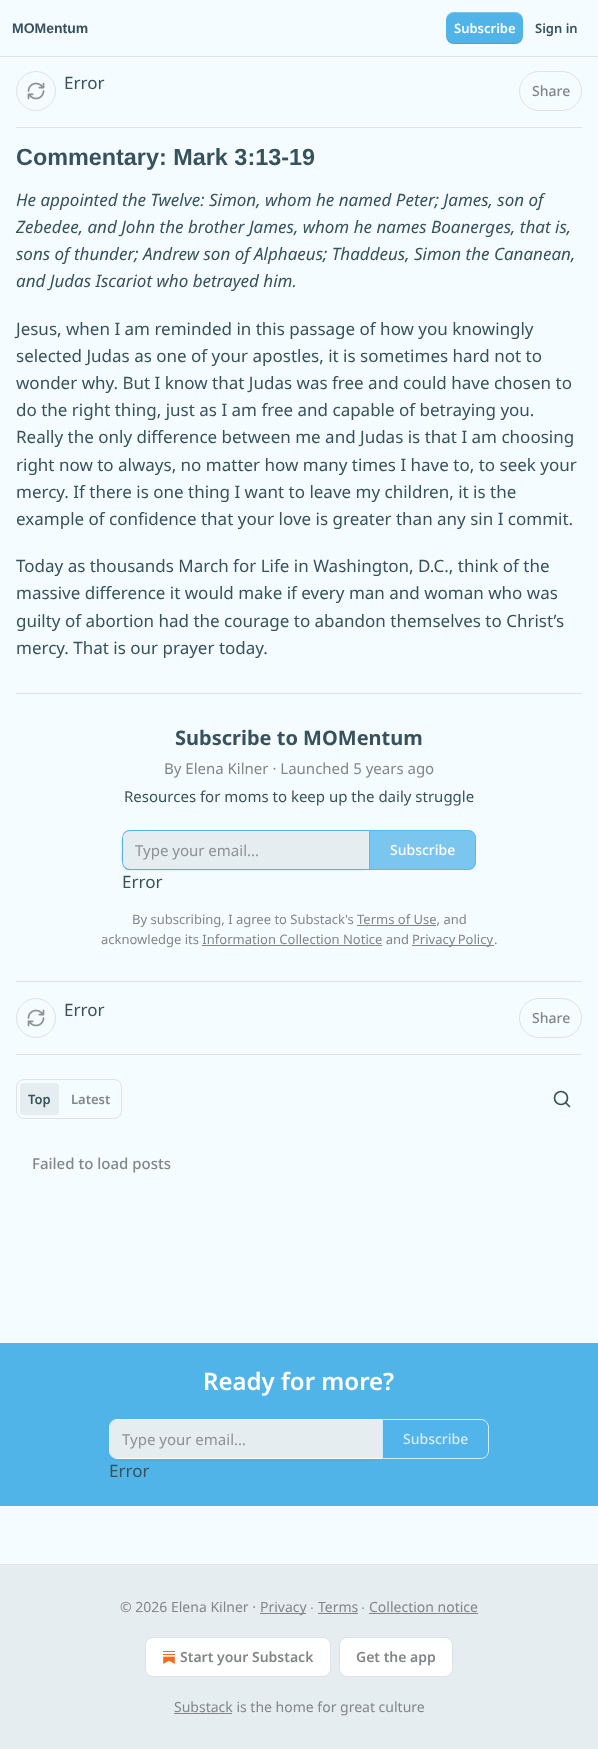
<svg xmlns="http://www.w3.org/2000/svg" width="598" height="1749">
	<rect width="100%" height="100%" fill="#F5FCFF" />
	<rect x="0" y="56" width="598" height="1" fill="#DDE3E6" />
	<text x="12" y="33" font-family="Liberation Sans" font-size="14" font-weight="700" fill="#37525D">MOMentum</text>
	<rect x="446" y="12" width="77" height="32" rx="8" fill="#51B4E9" />
	<path d="M446 35C446 46 456 44 464 44H505C513 44 523 46 523 35C523 39 519 43 515 43H454C450 43 446 39 446 35Z" fill="#000000" fill-opacity="0.1" />
	<path d="M454 13H515C519 13 523 17 523 21C523 10 513 12 505 12H464C456 12 446 10 446 21C446 17 450 13 454 13Z" fill="#FFFFFF" fill-opacity="0.2" />
	<text x="454" y="33" font-family="Noto Sans" font-size="13" font-weight="600" fill="#FFFFFF">Subscribe</text>
	<text x="535" y="33" font-family="Noto Sans" font-size="13" font-weight="600" fill="#37525D">Sign in</text>
	<rect x="16" y="127" width="566" height="1" fill="#DDE3E6" />
	<circle cx="36" cy="91" r="19.5" fill="none" stroke="#DDE3E6" />
	<image x="27" y="82" width="18" height="18" href="assets/img1.png" />
	<text x="64" y="89" font-family="Noto Sans" font-size="17" fill="#37525D">Error</text>
	<rect x="519.5" y="71.5" width="62" height="39" rx="19.5" fill="none" stroke="#DDE3E6" />
	<text x="532" y="96" font-family="Noto Sans" font-size="14" font-weight="500" fill="#828687">Share</text>
	<text x="16" y="165" font-family="Liberation Sans" font-size="23.4" font-weight="700" fill="#37525D">Commentary: Mark 3:13-19</text>
	<g font-family="Noto Sans" font-size="17" font-style="italic" fill="#37525D">
		<text x="16" y="206">He appointed the Twelve: Simon, whom he named Peter; James, son of</text>
		<text x="16" y="233">Zebedee, and John the brother James, whom he names Boanerges, that is,</text>
		<text x="16" y="260">sons of thunder; Andrew son of Alphaeus; Thaddeus, Simon the Cananean,</text>
		<text x="16" y="287">and Judas Iscariot who betrayed him.</text>
	</g>
	<g font-family="Noto Sans" font-size="17" fill="#37525D">
		<text x="16" y="335">Jesus, when I am reminded in this passage of how you knowingly</text>
		<text x="16" y="362">selected Judas as one of your apostles, it is sometimes hard not to</text>
		<text x="16" y="389">wonder why. But I know that Judas was free and could have chosen to</text>
		<text x="16" y="416">do the right thing, just as I am free and capable of betraying you.</text>
		<text x="16" y="443">Really the only difference between me and Judas is that I am choosing</text>
		<text x="16" y="471">right now to always, no matter how many times I have to, to seek your</text>
		<text x="16" y="498">mercy. If there is one thing I want to leave my children, it is the</text>
		<text x="16" y="525">example of confidence that your love is greater than any sin I commit.</text>
		<text x="16" y="572">Today as thousands March for Life in Washington, D.C., think of the</text>
		<text x="16" y="599">massive difference it would make if every man and woman who was</text>
		<text x="16" y="627">guilty of abortion had the courage to abandon themselves to Christ’s</text>
		<text x="16" y="654">mercy. That is our prayer today.</text>
	</g>
	<rect x="16" y="693" width="566" height="1" fill="#DDE3E6" />
	<text x="175" y="745" font-family="Noto Sans" font-size="20" font-weight="700" fill="#37525D">Subscribe to MOMentum</text>
	<text x="164" y="774" font-family="Noto Sans" font-size="15" fill="#828687">By Elena Kilner · Launched 5 years ago</text>
	<text x="124" y="802" font-family="Noto Sans" font-size="15" fill="#37525D">Resources for moms to keep up the daily struggle</text>
	<rect x="122" y="831" width="247" height="40" rx="8" fill="#000000" fill-opacity="0.05" filter="blur(1px)" />
	<path d="M130 831H369V869H130C126 869 123 866 123 862V838C123 834 126 831 130 831Z" fill="#E6EDF0" />
	<path d="M130 830H369V870H128C120 868 122 856 122 850C122 843 120 830 130 830ZM130 831H369V869H130C126 869 123 866 123 862V838C123 834 126 831 130 831Z" fill="#51B4E9" fill-rule="evenodd" />
	<text x="135" y="856" font-family="Noto Sans" font-size="15" fill="#8D9192">Type your email...</text>
	<path d="M369 830H468C472.5 830 476 833.5 476 838V862C476 866.5 472.5 870 468 870H369Z" fill="#51B4E9" fill-opacity="0.75" />
	<path d="M369.5 830.5H468C472 830.5 475.5 834 475.5 838V862C475.5 866 472 869.5 468 869.5H369.5Z" fill="none" stroke="#51B4E9" stroke-opacity="0.75" />
	<text x="390" y="855" font-family="Noto Sans" font-size="14" font-weight="500" fill="#FFFFFF">Subscribe</text>
	<text x="122" y="888" font-family="Noto Sans" font-size="17" fill="#37525D">Error</text>
	<text x="132" y="924" font-family="Noto Sans" font-size="13" fill="#828687">By subscribing, I agree to Substack's Terms of Use, and</text>
	<rect x="357" y="925" width="79" height="1" fill="#828687" />
	<text x="101" y="944" font-family="Noto Sans" font-size="13" fill="#828687">acknowledge its Information Collection Notice and</text>
	<rect x="412" y="945" width="82" height="1" fill="#828687" />
	<g font-family="Noto Sans" font-size="13" fill="#828687">
		<text x="412" y="944" word-spacing="-1">Privacy Policy</text>
		<text x="494" y="944">.</text>
	</g>
	<rect x="202" y="945" width="180" height="1" fill="#828687" />
	<rect x="16" y="981" width="566" height="1" fill="#DDE3E6" />
	<rect x="16" y="1054" width="566" height="1" fill="#DDE3E6" />
	<circle cx="36" cy="1018" r="19.5" fill="none" stroke="#DDE3E6" />
	<image x="27" y="1009" width="18" height="18" href="assets/img1.png" />
	<text x="64" y="1016" font-family="Noto Sans" font-size="17" fill="#37525D">Error</text>
	<rect x="519.5" y="998.5" width="62" height="39" rx="19.5" fill="none" stroke="#DDE3E6" />
	<text x="532" y="1023" font-family="Noto Sans" font-size="14" font-weight="500" fill="#828687">Share</text>
	<rect x="16.5" y="1079.5" width="105" height="39" rx="7.5" fill="none" stroke="#DDE3E6" />
	<rect x="20" y="1083" width="39" height="32" rx="4" fill="#E6EDF0" />
	<text x="28" y="1104" font-family="Noto Sans" font-size="13" font-weight="600" fill="#37525D">Top</text>
	<text x="71" y="1104" font-family="Noto Sans" font-size="13" font-weight="600" fill="#828687">Latest</text>
	<circle cx="561" cy="1098" r="6.5" fill="none" stroke="#37525D" stroke-width="1.7" />
	<path d="M569.5 1106.5L566 1103" fill="none" stroke="#37525D" stroke-width="1.7" stroke-linecap="round" stroke-linejoin="round" />
	<text x="32" y="1169" font-family="Noto Sans" font-size="15" font-weight="500" fill="#828687">Failed to load posts</text>
	<rect x="0" y="1343" width="598" height="163" fill="#51B4E9" />
	<text x="203" y="1390" font-family="Noto Sans" font-size="24" font-weight="600" fill="#FFFFFF">Ready for more?</text>
	<rect x="109" y="1420" width="273" height="40" rx="8" fill="#000000" fill-opacity="0.05" filter="blur(1px)" />
	<path d="M117 1420H382V1458H117C113 1458 110 1455 110 1451V1427C110 1423 113 1420 117 1420Z" fill="#E6EDF0" />
	<path d="M117 1419H382V1459H117C113 1459 109 1455 109 1451V1427C109 1423 113 1419 117 1419ZM117 1420H382V1458H117C113 1458 110 1455 110 1451V1427C110 1423 113 1420 117 1420Z" fill="#FFFFFF" fill-rule="evenodd" />
	<text x="122" y="1445" font-family="Noto Sans" font-size="15" fill="#8D9192">Type your email...</text>
	<path d="M382.5 1419.5H481C485 1419.5 488.5 1423 488.5 1427V1451C488.5 1455 485 1458.5 481 1458.5H382.5Z" fill="#51B4E9" fill-opacity="0.75" stroke="#D3ECF9" />
	<text x="403" y="1444" font-family="Noto Sans" font-size="14" font-weight="500" fill="#D4ECFA">Subscribe</text>
	<text x="109" y="1477" font-family="Noto Sans" font-size="17" fill="#37525D">Error</text>
	<rect x="0" y="1565" width="598" height="184" fill="#E6EDF0" />
	<rect x="0" y="1564" width="598" height="1" fill="#DDE3E6" />
	<text x="120" y="1612" font-family="Noto Sans" font-size="14" fill="#828687">© 2026 Elena Kilner ·</text>
	<rect x="260" y="1613" width="46" height="1" fill="#828687" />
	<text x="260" y="1612" font-family="Noto Sans" font-size="14" fill="#828687">Privacy</text>
	<text x="310" y="1612" font-family="Liberation Sans" font-size="14" fill="#828687">∙</text>
	<text x="318" y="1612" font-family="Noto Sans" font-size="14" fill="#828687">Terms</text>
	<rect x="318" y="1613" width="40" height="1" fill="#828687" />
	<text x="361" y="1612" font-family="Liberation Sans" font-size="14" fill="#828687">∙</text>
	<text x="369" y="1612" font-family="Noto Sans" font-size="14" fill="#828687">Collection notice</text>
	<rect x="369" y="1613" width="109" height="1" fill="#828687" />
	<rect x="145.5" y="1637.5" width="185" height="39" rx="7.5" fill="#FFFFFF" stroke="#DDE3E6" />
	<image x="163" y="1651" width="12" height="13" href="assets/img2.png" />
	<text x="180" y="1662" font-family="Noto Sans" font-size="14" font-weight="600" fill="#828687">Start your Substack</text>
	<rect x="339.5" y="1637.5" width="113" height="39" rx="7.5" fill="#FFFFFF" stroke="#DDE3E6" />
	<text x="356" y="1662" font-family="Noto Sans" font-size="14" font-weight="600" fill="#828687">Get the app</text>
	<rect x="174" y="1713" width="58" height="1" fill="#828687" />
	<text x="174" y="1712" font-family="Noto Sans" font-size="14" fill="#828687">Substack is the home for great culture</text>
</svg>
